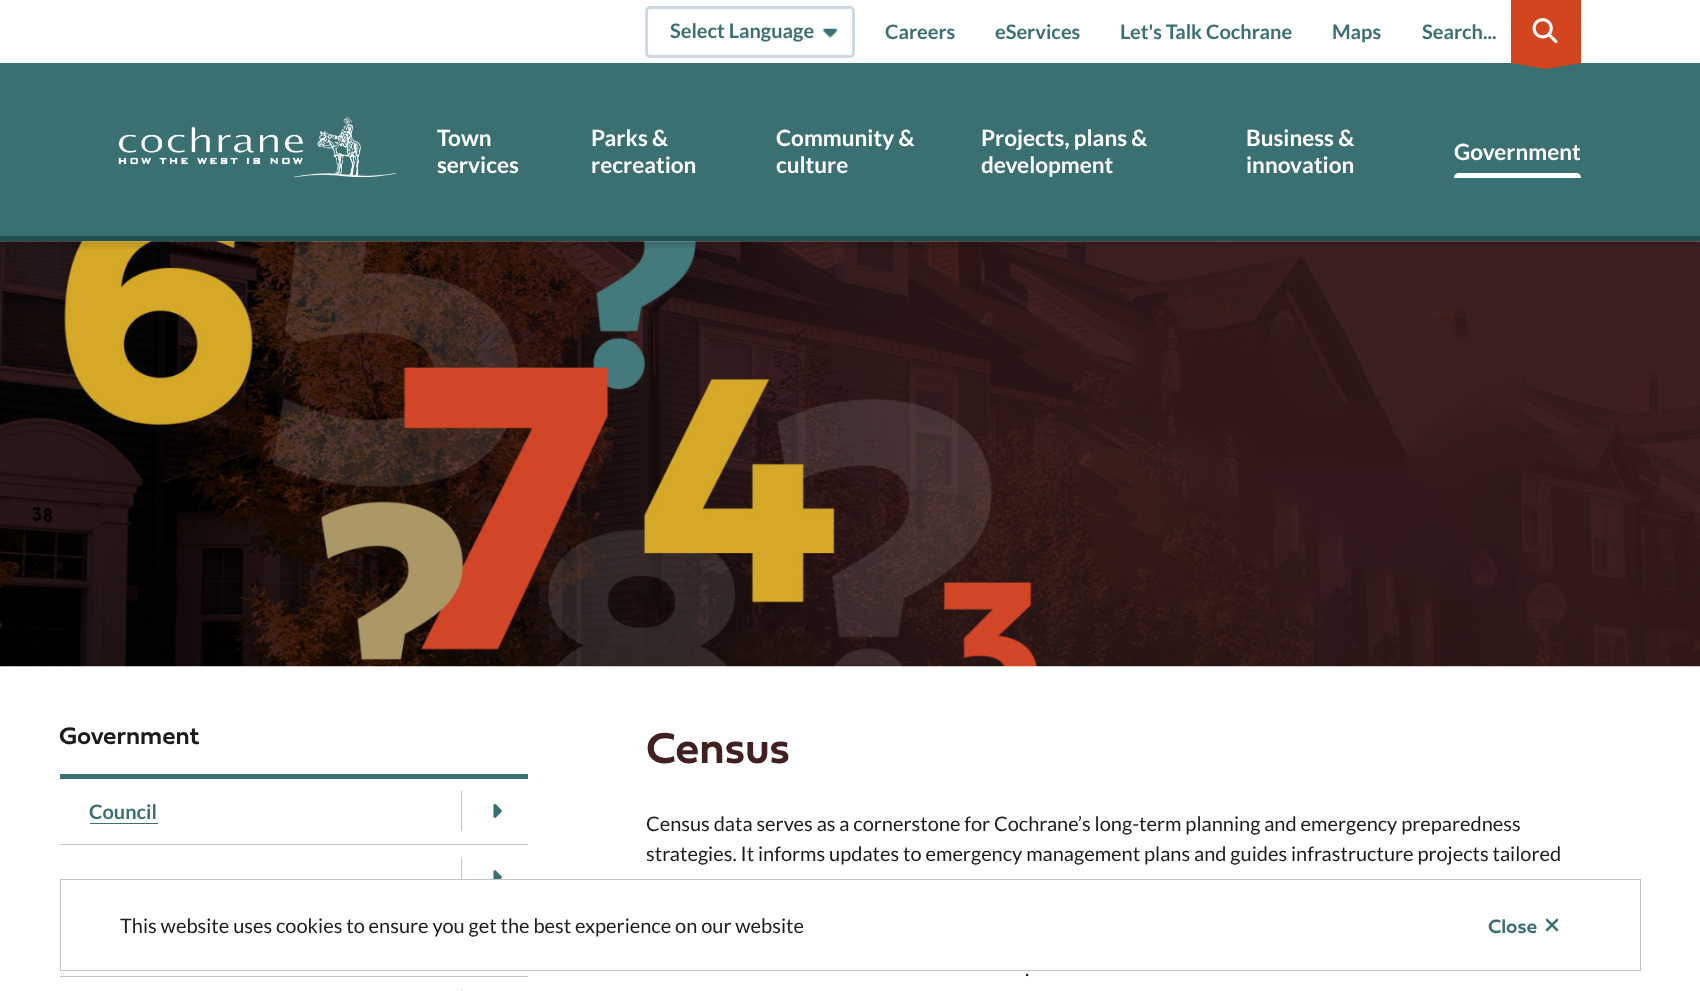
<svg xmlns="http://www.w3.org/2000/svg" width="1700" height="991">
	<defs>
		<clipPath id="clip1"><rect x="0" y="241" width="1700" height="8" /></clipPath>
	</defs>
	<rect width="100%" height="100%" fill="#FFFFFF" />
	<image x="0" y="241" width="1700" height="426" href="assets/img4.png" />
	<g clip-path="url(#clip1)">
		<rect x="0" y="4" width="1700" height="241" fill="#000000" fill-opacity="0.15" filter="blur(4px)" />
	</g>
	<image x="822" y="28" width="16" height="10" href="assets/img1.png" />
	<rect x="646.5" y="7.5" width="207" height="49" rx="3.5" fill="none" stroke="#CDD8E6" stroke-width="3" />
	<g font-family="Lato" font-size="20" font-weight="700" fill="#3B7072">
		<text x="670" y="38">Select Language</text>
		<text x="885" y="39">Careers</text>
		<text x="995" y="39">eServices</text>
		<text x="1120" y="39">Let's Talk Cochrane</text>
		<text x="1332" y="39">Maps</text>
	</g>
	<rect x="1511" y="0" width="70" height="61" fill="#D2451E" />
	<rect x="0" y="63" width="1700" height="173" fill="#3B7072" />
	<path d="M1581 61V63L1546 69L1511 63V61Z" fill="#D2451E" />
	<text x="1422" y="39" font-family="Lato" font-size="20" font-weight="700" fill="#3B7072">Search...</text>
	<image x="1532" y="18" width="26" height="26" href="assets/img2.png" />
	<image x="118" y="117" width="279" height="61" href="assets/img3.png" />
	<g font-family="Lato" font-size="22.5" font-weight="700" fill="#FFFFFF">
		<text x="437" y="146">Town</text>
		<text x="437" y="173">services</text>
		<text x="591" y="146">Parks &amp;</text>
		<text x="591" y="173">recreation</text>
		<text x="776" y="146">Community &amp;</text>
		<text x="776" y="173">culture</text>
		<text x="981" y="146">Projects, plans &amp;</text>
		<text x="981" y="173">development</text>
		<text x="1246" y="146">Business &amp;</text>
		<text x="1246" y="173">innovation</text>
		<text x="1454" y="160">Government</text>
	</g>
	<path d="M1459 173H1576C1579 173 1581 175 1581 178H1454C1454 175 1456 173 1459 173Z" fill="#FFFFFF" />
	<rect x="0" y="236" width="1700" height="5" fill="#214F50" />
	<text x="59" y="744" font-family="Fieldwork" font-size="25" font-weight="600" fill="#1C1C1C">Government</text>
	<rect x="60" y="774" width="468" height="5" fill="#3B7072" />
	<rect x="60" y="844" width="468" height="1" fill="#C0C3C9" />
	<text x="89" y="819" font-family="Lato" font-size="20" font-weight="700" fill="#3B7072">Council</text>
	<rect x="90" y="823" width="68" height="1" fill="#3B7072" />
	<rect x="461" y="791" width="1" height="40" fill="#C0C3C9" />
	<image x="493" y="803" width="9" height="15" href="assets/img5.png" />
	<rect x="461" y="858" width="1" height="21" fill="#C0C3C9" />
	<image x="493" y="870" width="9" height="9" href="assets/img6.png" />
	<rect x="60" y="976" width="468" height="1" fill="#C0C3C9" />
	<rect x="461" y="990" width="1" height="1" fill="#C0C3C9" />
	<text x="646" y="763" font-family="Fieldwork" font-size="45" font-weight="600" fill="#402020">Census</text>
	<g font-family="Lato" font-size="20" fill="#1C1C1C">
		<text x="646" y="831">Census data serves as a cornerstone for Cochrane’s long-term planning and emergency preparedness</text>
		<text x="646" y="861">strategies. It informs updates to emergency management plans and guides infrastructure projects tailored</text>
		<text x="1025" y="976">.</text>
	</g>
	<rect x="60.5" y="879.5" width="1580" height="91" fill="none" stroke="#C0C3C9" />
	<text x="120" y="933" font-family="Lato" font-size="20" fill="#1C1C1C">This website uses cookies to ensure you get the best experience on our website</text>
	<text x="1488" y="933" font-family="Fieldwork" font-size="20" font-weight="600" fill="#3B7072">Close</text>
	<image x="1545" y="918" width="14" height="14" href="assets/img7.png" />
</svg>
